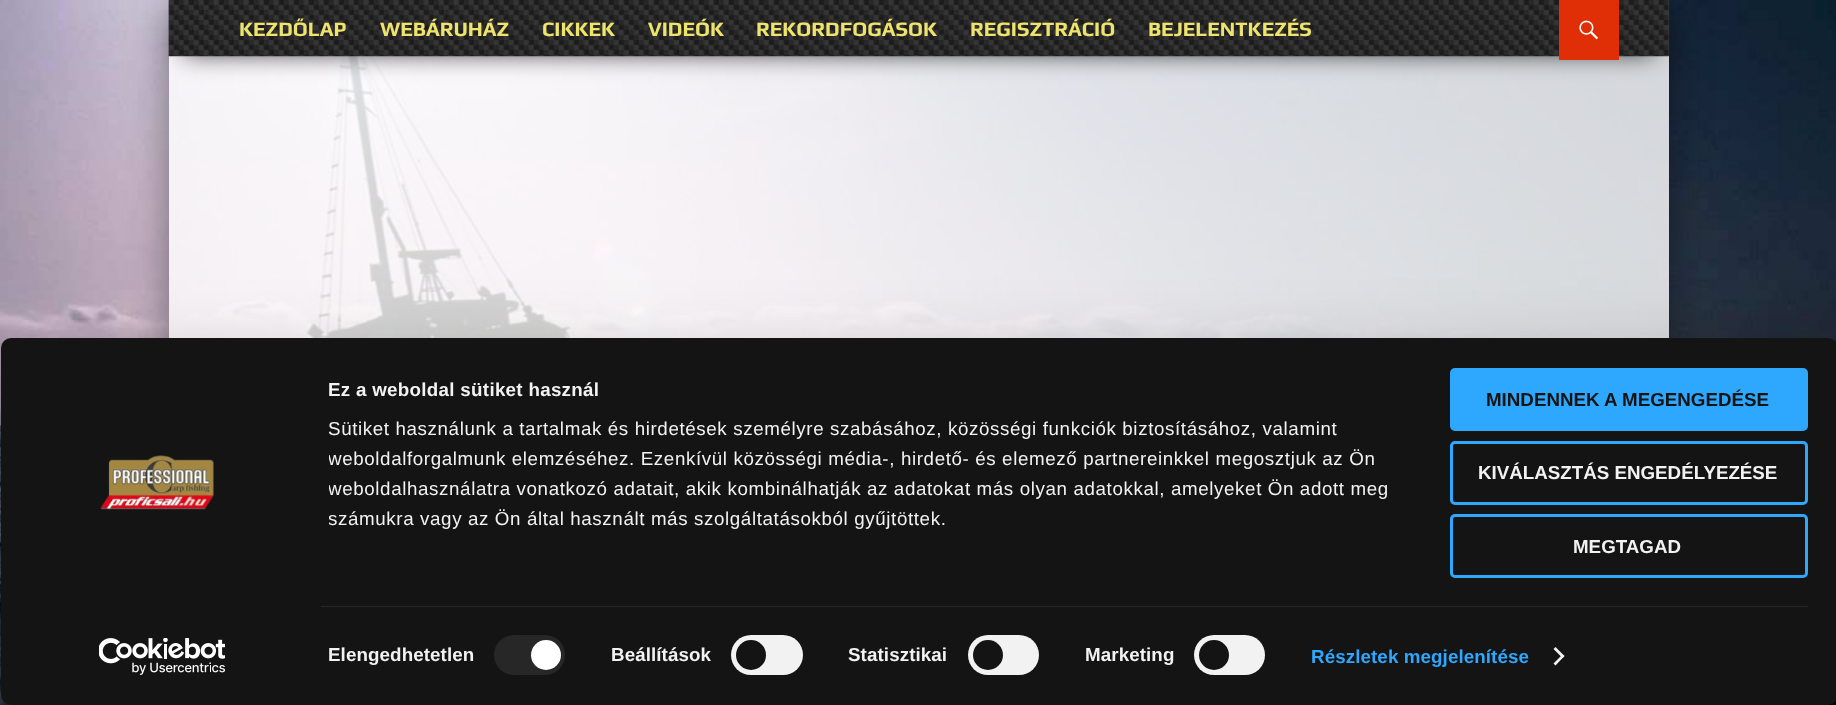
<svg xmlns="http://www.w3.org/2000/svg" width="1836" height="705">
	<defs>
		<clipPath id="clip1"><path d="M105 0H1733V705H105ZM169 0H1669V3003H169Z" clip-rule="evenodd" /></clipPath>
		<clipPath id="clip2"><rect x="329" y="375" width="1085" height="195" /></clipPath>
	</defs>
	<rect width="100%" height="100%" fill="#FFFFFF" />
	<image x="0" y="0" width="1836" height="705" href="assets/img1.png" />
	<g clip-path="url(#clip1)">
		<rect x="169" y="0" width="1500" height="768" fill="#000000" fill-opacity="0.43" filter="blur(21px)" />
	</g>
	<rect x="169" y="0" width="1500" height="338" fill="#FFFFFF" fill-opacity="0.82" />
	<rect x="184" y="28" width="1470" height="26" fill="#000000" fill-opacity="0.75" filter="blur(12.5px)" />
	<rect x="169" y="0" width="1500" height="56" fill="#292929" fill-opacity="0.83" />
	<image x="168" y="0" width="1502" height="57" href="assets/img2.png" />
	<g font-family="Play" font-size="20.6" font-weight="700" fill="#EEE36C">
		<text x="239" y="36">KEZDŐLAP</text>
		<text x="380" y="36">WEBÁRUHÁZ</text>
		<text x="542" y="36">CIKKEK</text>
		<text x="648" y="36">VIDEÓK</text>
		<text x="756" y="36">REKORDFOGÁSOK</text>
		<text x="970" y="36">REGISZTRÁCIÓ</text>
		<text x="1148" y="36">BEJELENTKEZÉS</text>
	</g>
	<rect x="1559" y="0" width="60" height="60" fill="#E02F07" />
	<image x="1579" y="20" width="19" height="20" href="assets/img3.png" />
	<rect x="1" y="375" width="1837" height="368" rx="10" fill="#000000" fill-opacity="0.3" filter="blur(44px)" />
	<rect x="1" y="338" width="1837" height="367" rx="10" fill="#141414" />
	<image x="100" y="455" width="114" height="55" href="assets/img4.png" />
	<image x="99" y="638" width="126" height="37" href="assets/img5.png" />
	<g clip-path="url(#clip2)">
		<text x="328" y="396" font-family="Liberation Sans" font-size="18.75" font-weight="700" letter-spacing="0.3" fill="#F2F2F2">Ez a weboldal sütiket használ</text>
	</g>
	<text x="328" y="435" font-family="Liberation Sans" font-size="18.75" letter-spacing="0.62" fill="#F2F2F2">Sütiket használunk a tartalmak és hirdetések személyre szabásához, közösségi funkciók biztosításához, valamint</text>
	<g clip-path="url(#clip2)">
		<g font-family="Liberation Sans" font-size="18.75" letter-spacing="0.62" fill="#F2F2F2">
			<text x="328" y="465">weboldalforgalmunk elemzéséhez. Ezenkívül közösségi média-, hirdető- és elemező partnereinkkel megosztjuk az Ön</text>
			<text x="328" y="495">weboldalhasználatra vonatkozó adatait, akik kombinálhatják az adatokat más olyan adatokkal, amelyeket Ön adott meg</text>
			<text x="328" y="525">számukra vagy az Ön által használt más szolgáltatásokból gyűjtöttek.</text>
		</g>
	</g>
	<rect x="321" y="606" width="1487" height="1" fill="#272727" />
	<text x="328" y="661" font-family="Liberation Sans" font-size="18.75" font-weight="700" letter-spacing="0.1" fill="#F2F2F2">Elengedhetetlen</text>
	<rect x="494" y="635" width="71" height="40" rx="20" fill="#272727" />
	<circle cx="546" cy="655" r="15" fill="#FFFFFF" />
	<text x="611" y="661" font-family="Liberation Sans" font-size="18.75" font-weight="700" letter-spacing="0.1" fill="#F2F2F2">Beállítások</text>
	<rect x="731" y="635" width="72" height="40" rx="20" fill="#F2F2F2" />
	<circle cx="751" cy="655" r="15" fill="#141414" />
	<text x="848" y="661" font-family="Liberation Sans" font-size="18.75" font-weight="700" letter-spacing="0.1" fill="#F2F2F2">Statisztikai</text>
	<rect x="968" y="635" width="71" height="40" rx="20" fill="#F2F2F2" />
	<circle cx="988" cy="655" r="15" fill="#141414" />
	<text x="1085" y="661" font-family="Liberation Sans" font-size="18.75" font-weight="700" letter-spacing="0.1" fill="#F2F2F2">Marketing</text>
	<rect x="1194" y="635" width="71" height="40" rx="20" fill="#F2F2F2" />
	<circle cx="1214" cy="655" r="15" fill="#141414" />
	<text x="1311" y="663" font-family="Liberation Sans" font-size="18.75" font-weight="700" letter-spacing="0.1" fill="#2EA7FF">Részletek megjelenítése</text>
	<path d="M1555.5 647L1564.5 656L1562.5 658L1553.5 649Z" fill="#F2F2F2" />
	<path d="M1562.5 654.5L1564.5 656L1555.5 665.5L1553.5 663.5Z" fill="#F2F2F2" />
	<rect x="1451.5" y="369.5" width="355" height="60" rx="3.5" fill="#2EA7FF" stroke="#2EA7FF" stroke-width="3" />
	<text x="1486" y="406" font-family="Liberation Sans" font-size="18.75" font-weight="700" fill="#141414">MINDENNEK A MEGENGEDÉSE</text>
	<rect x="1451.5" y="442.5" width="355" height="61" rx="3.5" fill="none" stroke="#2EA7FF" stroke-width="3" />
	<text x="1478" y="479" font-family="Liberation Sans" font-size="18.75" font-weight="700" fill="#F2F2F2">KIVÁLASZTÁS ENGEDÉLYEZÉSE</text>
	<rect x="1451.5" y="515.5" width="355" height="61" rx="3.5" fill="none" stroke="#2EA7FF" stroke-width="3" />
	<text x="1573" y="553" font-family="Liberation Sans" font-size="18.75" font-weight="700" fill="#F2F2F2">MEGTAGAD</text>
</svg>
